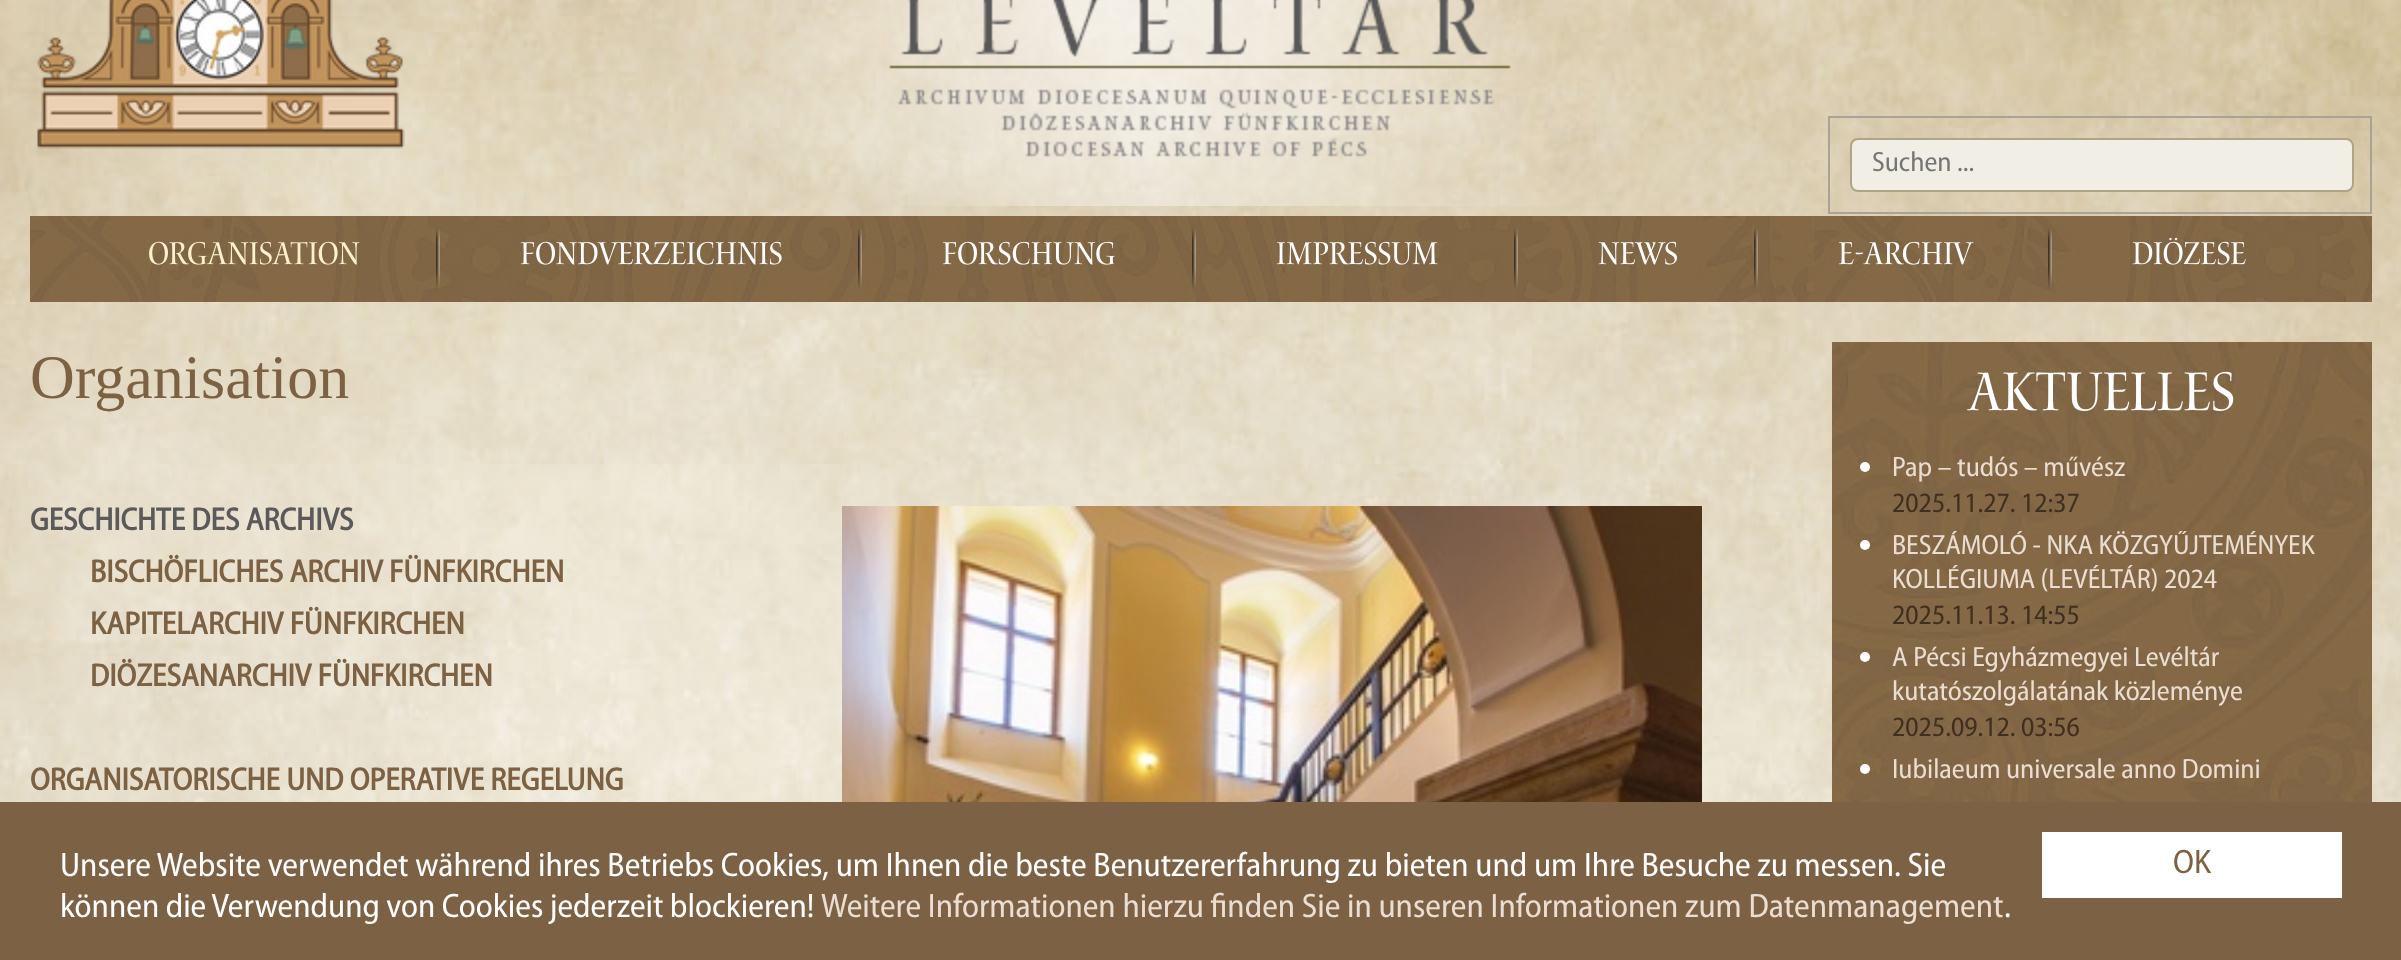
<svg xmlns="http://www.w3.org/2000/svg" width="2401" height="960">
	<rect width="100%" height="100%" fill="#FFFFFF" />
	<image x="0" y="0" width="2401" height="802" href="assets/img1.png" />
	<image x="37" y="0" width="368" height="149" href="assets/img2.png" />
	<image x="679" y="0" width="952" height="206" href="assets/img3.png" />
	<rect x="1829" y="117" width="542" height="96" fill="none" stroke="#A9A396" stroke-width="2" />
	<rect x="1851" y="139" width="502" height="52" rx="7" fill="#F1EEE5" stroke="#ACA686" stroke-width="2" />
	<text x="1872" y="171" font-family="Myriad" font-size="28" fill="#757477">Suchen ...</text>
	<image x="30" y="216" width="2342" height="86" href="assets/img4.png" />
	<image x="436" y="228" width="4" height="61" href="assets/img5.png" />
	<image x="149" y="241" width="211" height="24" href="assets/img6.png" />
	<image x="858" y="228" width="4" height="61" href="assets/img7.png" />
	<image x="520" y="241" width="262" height="24" href="assets/img8.png" />
	<image x="1192" y="228" width="4" height="61" href="assets/img9.png" />
	<image x="942" y="241" width="173" height="24" href="assets/img10.png" />
	<image x="1514" y="228" width="4" height="61" href="assets/img11.png" />
	<image x="1276" y="241" width="162" height="24" href="assets/img12.png" />
	<image x="1754" y="228" width="4" height="61" href="assets/img13.png" />
	<image x="1598" y="241" width="79" height="24" href="assets/img14.png" />
	<image x="2048" y="228" width="4" height="61" href="assets/img15.png" />
	<image x="1838" y="241" width="136" height="24" href="assets/img16.png" />
	<image x="2132" y="237" width="114" height="28" href="assets/img17.png" />
	<text x="30" y="398" font-family="Liberation Serif" font-size="62" fill="#7C6143">Organisation</text>
	<text x="30" y="530" font-family="Myriad" font-size="32" font-weight="700" fill="#5A5A5A">GESCHICHTE DES ARCHIVS</text>
	<image x="842" y="506" width="860" height="296" href="assets/img18.png" />
	<g font-family="Myriad" font-size="32" font-weight="700" fill="#7C6143">
		<text x="90" y="582">BISCHÖFLICHES ARCHIV FÜNFKIRCHEN</text>
		<text x="90" y="634">KAPITELARCHIV FÜNFKIRCHEN</text>
		<text x="90" y="686">DIÖZESANARCHIV FÜNFKIRCHEN</text>
		<text x="30" y="790">ORGANISATORISCHE UND OPERATIVE REGELUNG</text>
	</g>
	<image x="1832" y="342" width="540" height="460" href="assets/img19.png" />
	<image x="1967" y="371" width="267" height="40" href="assets/img20.png" />
	<circle cx="1865" cy="467" r="5" fill="#FFFFFF" />
	<text x="1892" y="476" font-family="Myriad" font-size="28" fill="#EADED2">Pap – tudós – művész</text>
	<text x="1892" y="512" font-family="Myriad" font-size="28" fill="#3F2F21">2025.11.27. 12:37</text>
	<circle cx="1865" cy="545" r="5" fill="#FFFFFF" />
	<g font-family="Myriad" font-size="28" fill="#EADED2">
		<text x="1892" y="554">BESZÁMOLÓ - NKA KÖZGYŰJTEMÉNYEK</text>
		<text x="1892" y="588">KOLLÉGIUMA (LEVÉLTÁR) 2024</text>
	</g>
	<text x="1892" y="624" font-family="Myriad" font-size="28" fill="#3F2F21">2025.11.13. 14:55</text>
	<circle cx="1865" cy="657" r="5" fill="#FFFFFF" />
	<g font-family="Myriad" font-size="28" fill="#EADED2">
		<text x="1892" y="666">A Pécsi Egyházmegyei Levéltár</text>
		<text x="1892" y="700">kutatószolgálatának közleménye</text>
	</g>
	<text x="1892" y="736" font-family="Myriad" font-size="28" fill="#3F2F21">2025.09.12. 03:56</text>
	<circle cx="1865" cy="769" r="5" fill="#FFFFFF" />
	<text x="1892" y="778" font-family="Myriad" font-size="28" fill="#EADED2">Iubilaeum universale anno Domini</text>
	<rect x="0" y="802" width="2401" height="158" fill="#7C6144" />
	<g font-family="Myriad" font-size="34" fill="#FFFFFF">
		<text x="60" y="876">Unsere Website verwendet während ihres Betriebs Cookies, um Ihnen die beste Benutzererfahrung zu bieten und um Ihre Besuche zu messen. Sie</text>
		<text x="60" y="917" word-spacing="-0.25">können die Verwendung von Cookies jederzeit blockieren!</text>
	</g>
	<text x="821" y="917" font-family="Myriad" font-size="34" fill="#EADED2">Weitere Informationen hierzu finden Sie in unseren Informationen zum Datenmanagement</text>
	<text x="2004" y="917" font-family="Myriad" font-size="34" fill="#FFFFFF">.</text>
	<rect x="2042" y="832" width="300" height="66" fill="#FFFFFF" />
	<text x="2173" y="873" font-family="Myriad" font-size="34" fill="#7C6143">OK</text>
</svg>
